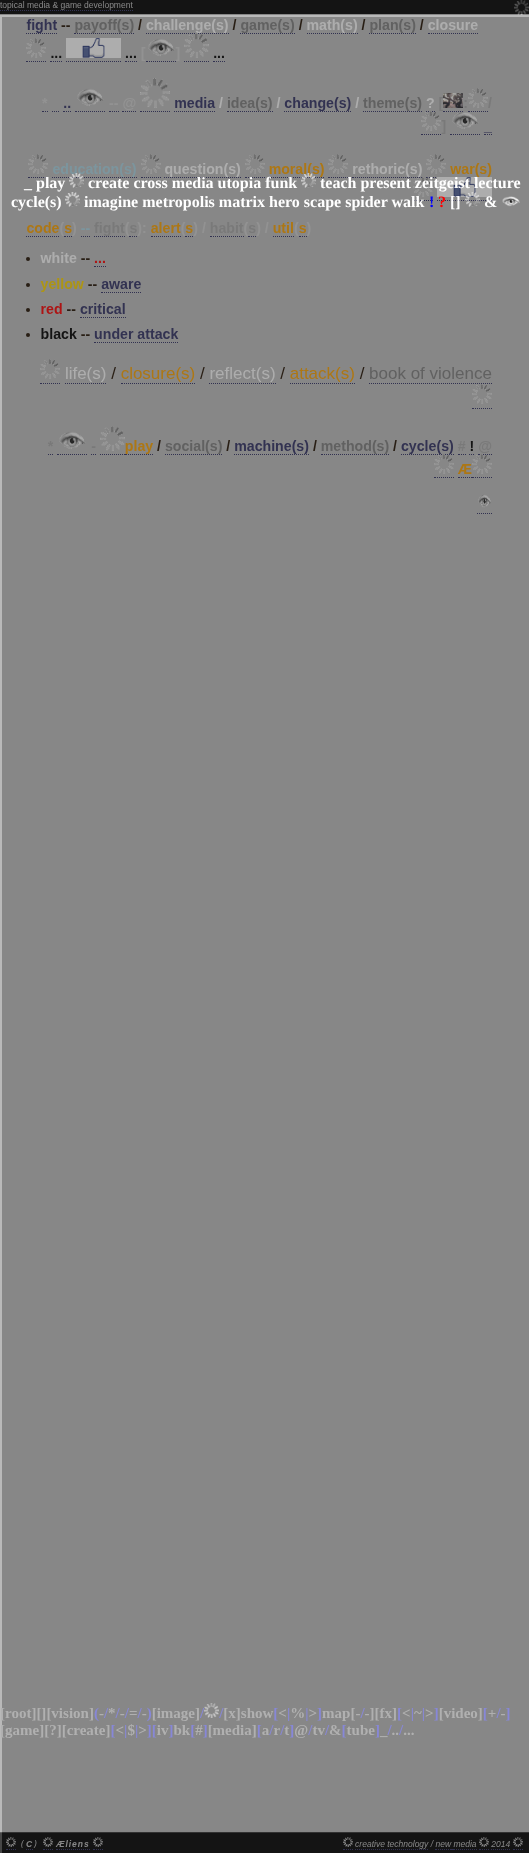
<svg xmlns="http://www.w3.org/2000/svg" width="529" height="1853">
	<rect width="100%" height="100%" fill="#FFFFFF" />
	<image x="0" y="0" width="529" height="1853" href="assets/img1.png" />
	<image x="0" y="0" width="529" height="1853" href="assets/img2.png" />
	<text x="24" y="188" font-family="Liberation Serif" font-size="16" font-weight="700" fill="#FFFFFF">_ play</text>
	<image x="69" y="173" width="15" height="15" href="assets/img3.png" />
	<text x="88" y="188" font-family="Liberation Serif" font-size="16" font-weight="700" fill="#FFFFFF">create cross media utopia funk</text>
	<image x="301" y="173" width="15" height="15" href="assets/img4.png" />
	<g font-family="Liberation Serif" font-size="16" font-weight="700" fill="#FFFFFF">
		<text x="320" y="188">teach present zeitgeist lecture</text>
		<text x="11" y="207">cycle(s)</text>
	</g>
	<image x="65" y="192" width="15" height="15" href="assets/img5.png" />
	<text x="84" y="207" font-family="Liberation Serif" font-size="16" font-weight="700" fill="#FFFFFF">imagine metropolis matrix hero scape spider walk</text>
	<text x="429" y="207" font-family="Liberation Serif" font-size="16" font-weight="700" fill="#0000FF">!</text>
	<text x="438" y="207" font-family="Liberation Serif" font-size="16" font-weight="700" fill="#FF0000">?</text>
	<text x="450" y="207" font-family="Liberation Serif" font-size="16" font-weight="700" fill="#FFFFFF">[]</text>
	<image x="465" y="192" width="15" height="15" href="assets/img6.png" />
	<text x="484" y="207" font-family="Liberation Serif" font-size="16" font-weight="700" fill="#FFFFFF">&amp;</text>
	<image x="502" y="196" width="18" height="11" href="assets/img7.png" />
</svg>
